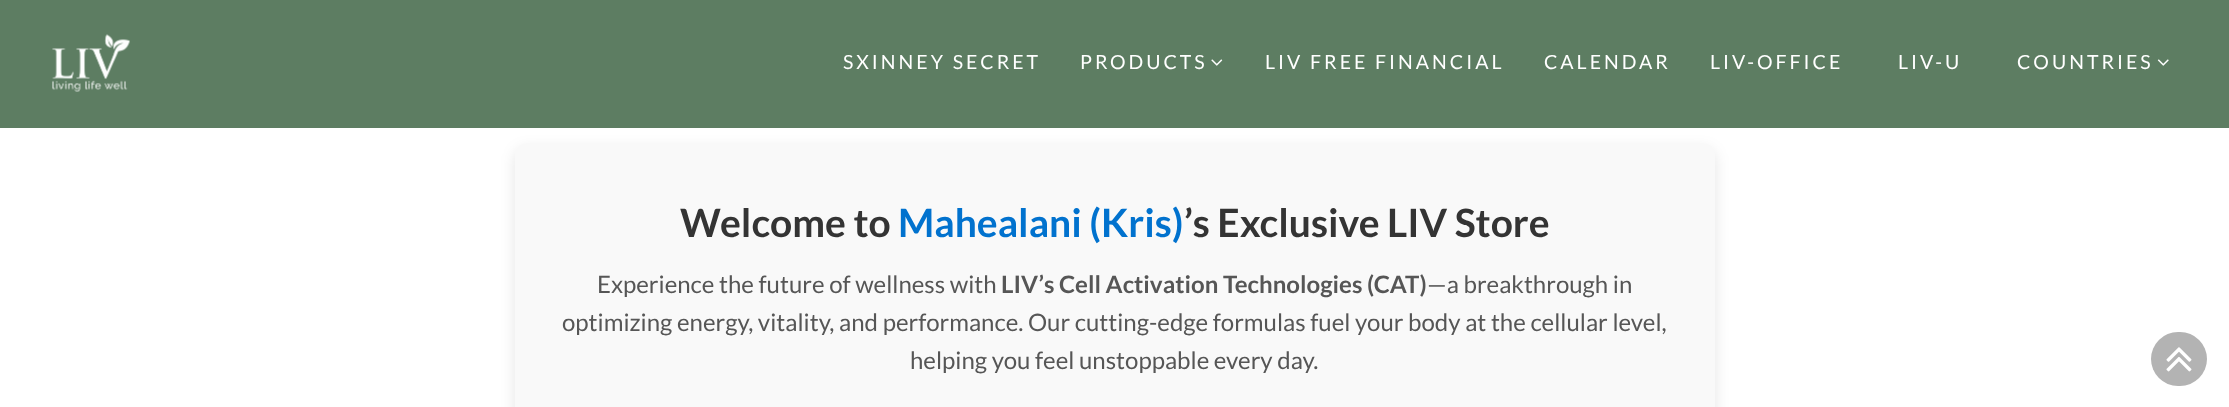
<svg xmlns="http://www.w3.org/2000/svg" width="2229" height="407">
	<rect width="100%" height="100%" fill="#FFFFFF" />
	<rect x="515" y="149" width="1200" height="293" rx="12" fill="#010101" fill-opacity="0.1" filter="blur(7.5px)" />
	<rect x="0" y="0" width="2229" height="128" fill="#5D7D62" />
	<image x="52" y="34" width="78" height="58" href="assets/img1.png" />
	<g font-family="Lato" font-size="19.5" letter-spacing="3" fill="#FFFFFF">
		<text x="843" y="69">SXINNEY SECRET</text>
		<text x="1080" y="69">PRODUCTS</text>
	</g>
	<image x="1211" y="59" width="12" height="7" href="assets/img2.png" />
	<g font-family="Lato" font-size="19.5" letter-spacing="3" fill="#FFFFFF">
		<text x="1265" y="69">LIV FREE FINANCIAL</text>
		<text x="1544" y="69">CALENDAR</text>
		<text x="1710" y="69">LIV-OFFICE</text>
		<text x="1898" y="69">LIV-U</text>
		<text x="2017" y="69">COUNTRIES</text>
	</g>
	<image x="2157" y="59" width="12" height="7" href="assets/img3.png" />
	<rect x="515" y="143" width="1200" height="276" rx="12" fill="#F9F9F9" />
	<text x="680" y="237" font-family="Lato" font-size="39" font-weight="700" fill="#343434">Welcome to</text>
	<text x="898" y="237" font-family="Lato" font-size="39" font-weight="700" fill="#0172CE">Mahealani (Kris)</text>
	<text x="1184" y="237" font-family="Lato" font-size="39" font-weight="700" fill="#343434">’s Exclusive LIV Store</text>
	<text x="597" y="293" font-family="Lato" font-size="24" fill="#565656">Experience the future of wellness with</text>
	<text x="1001" y="293" font-family="Lato" font-size="24" font-weight="700" fill="#565656">LIV’s Cell Activation Technologies (CAT)</text>
	<g font-family="Lato" font-size="24" fill="#565656">
		<text x="1427" y="293">—a breakthrough in</text>
		<text x="562" y="331">optimizing energy, vitality, and performance. Our cutting-edge formulas fuel your body at the cellular level,</text>
		<text x="910" y="369">helping you feel unstoppable every day.</text>
	</g>
	<rect x="2151" y="332" width="56" height="54" rx="27" fill="#B3B3B3" />
	<image x="2166" y="347" width="26" height="25" href="assets/img4.png" />
</svg>
